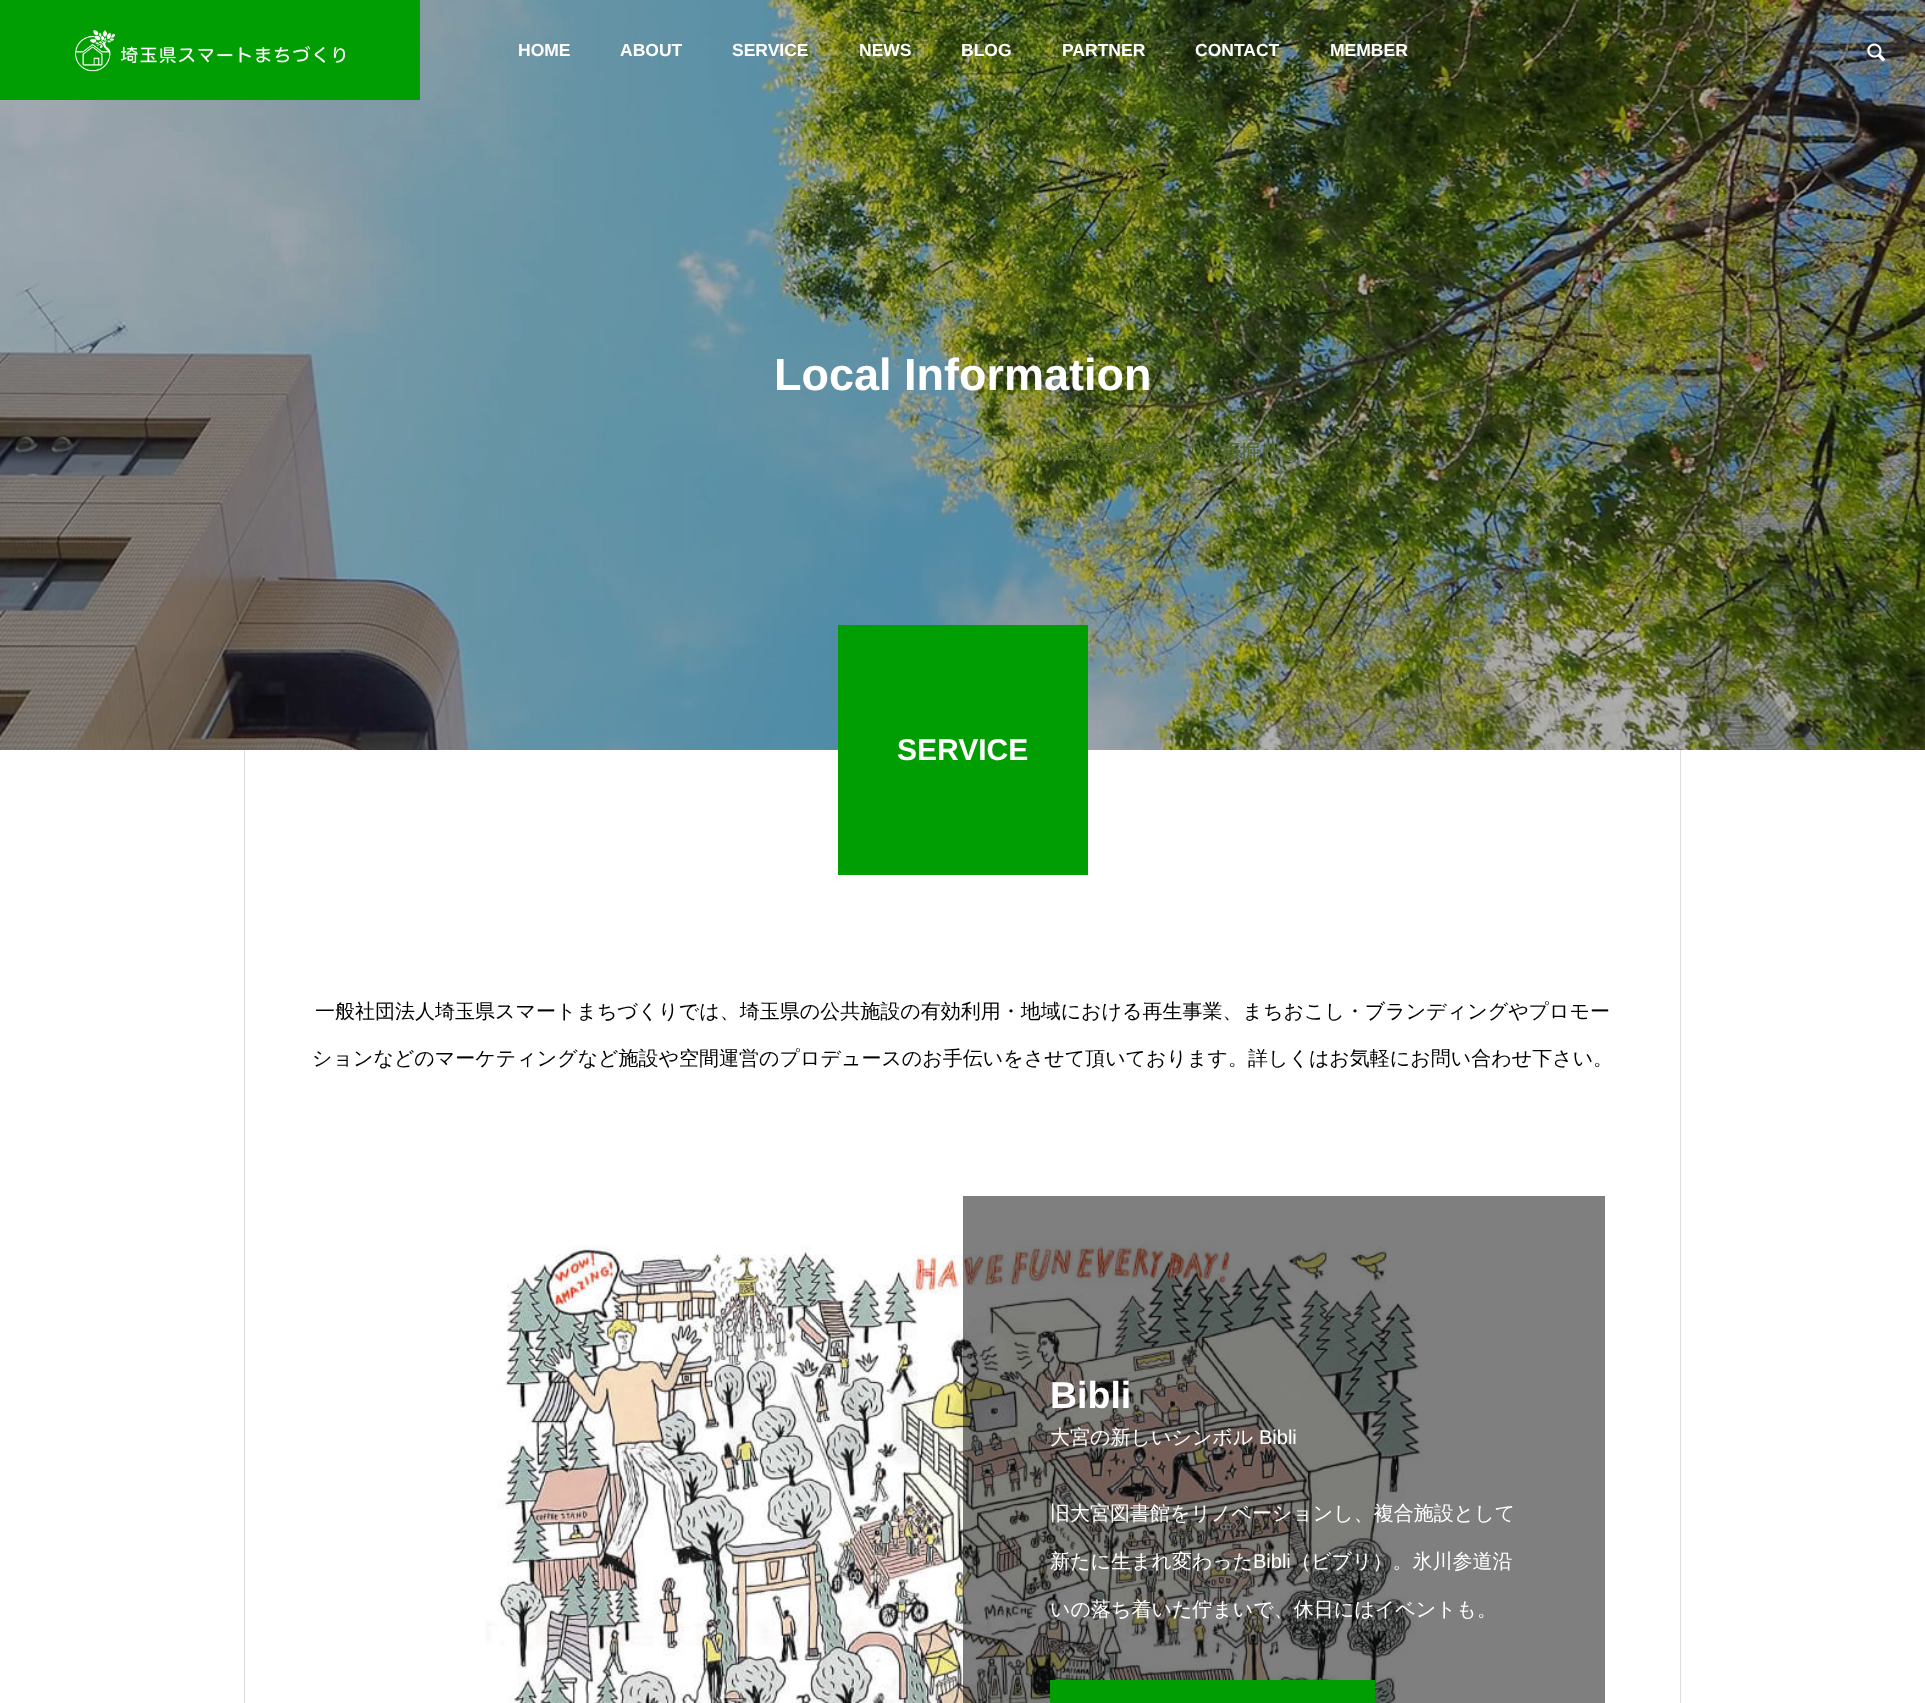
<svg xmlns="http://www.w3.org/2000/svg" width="1925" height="1703">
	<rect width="100%" height="100%" fill="#FFFFFF" />
	<image x="0" y="0" width="1925" height="750" href="assets/img3.png" />
	<rect x="0" y="0" width="420" height="100" fill="#009E02" />
	<image x="75" y="30" width="270" height="42" href="assets/img1.png" />
	<g font-family="Liberation Sans" font-size="17.5" font-weight="700" fill="#FFFFFF">
		<text x="518" y="56">HOME</text>
		<text x="620" y="56">ABOUT</text>
		<text x="732" y="56">SERVICE</text>
		<text x="859" y="56">NEWS</text>
		<text x="961" y="56">BLOG</text>
		<text x="1062" y="56">PARTNER</text>
		<text x="1195" y="56">CONTACT</text>
		<text x="1330" y="56">MEMBER</text>
	</g>
	<image x="1867" y="43" width="19" height="19" href="assets/img2.png" />
	<text x="1066" y="174" font-family="WenQuanYi Zen Hei" font-size="15" font-weight="500" fill="#60662E">お知らせ</text>
	<text x="1040" y="459" font-family="WenQuanYi Zen Hei" font-size="20" font-weight="700" fill="#596A2F">大宮公園舟遊池「大掻掘りま</text>
	<text x="1217" y="489" font-family="WenQuanYi Zen Hei" font-size="20" font-weight="700" fill="#3F4A22">）</text>
	<text x="774" y="390" font-family="Liberation Sans" font-size="45" font-weight="700" fill="#FFFFFF">Local Information</text>
	<rect x="1680" y="750" width="1" height="953" fill="#DDDDDD" />
	<rect x="244" y="750" width="1" height="953" fill="#DDDDDD" />
	<rect x="838" y="625" width="250" height="250" fill="#009E02" />
	<text x="897" y="760" font-family="Liberation Sans" font-size="30" font-weight="700" fill="#FFFFFF">SERVICE</text>
	<g font-family="WenQuanYi Zen Hei" font-size="20" font-weight="500" fill="#000000">
		<text x="315" y="1018">一般社団法人埼玉県スマートまちづくりでは、埼玉県の公共施設の有効利用・地域における再生事業、まちおこし・ブランディングやプロモー</text>
		<text x="312" y="1065">ションなどのマーケティングなど施設や空間運営のプロデュースのお手伝いをさせて頂いております。詳しくはお気軽にお問い合わせ下さい。</text>
	</g>
	<image x="485" y="1243" width="940" height="460" href="assets/img4.png" />
	<rect x="963" y="1196" width="642" height="507" fill="#000000" fill-opacity="0.5" />
	<text x="1050" y="1408" font-family="Liberation Sans" font-size="37.5" font-weight="700" fill="#FFFFFF">Bibli</text>
	<text x="1050" y="1444" font-family="WenQuanYi Zen Hei" font-size="20" font-weight="500" fill="#FFFFFF">大宮の新しいシンボル</text>
	<text x="1259" y="1444" font-family="Liberation Sans" font-size="20" fill="#FFFFFF">Bibli</text>
	<g font-family="WenQuanYi Zen Hei" font-size="20" font-weight="500" fill="#FFFFFF">
		<text x="1050" y="1520">旧大宮図書館をリノベーションし、複合施設として</text>
		<text x="1050" y="1568">新たに生まれ変わった</text>
	</g>
	<text x="1253" y="1568" font-family="Liberation Sans" font-size="20" fill="#FFFFFF">Bibli</text>
	<g font-family="WenQuanYi Zen Hei" font-size="20" font-weight="500" fill="#FFFFFF">
		<text x="1291" y="1568">（ビブリ）。氷川参道沿</text>
		<text x="1050" y="1616">いの落ち着いた佇まいで、休日にはイベントも。</text>
	</g>
	<rect x="1050" y="1680" width="325" height="23" fill="#009E02" />
</svg>
